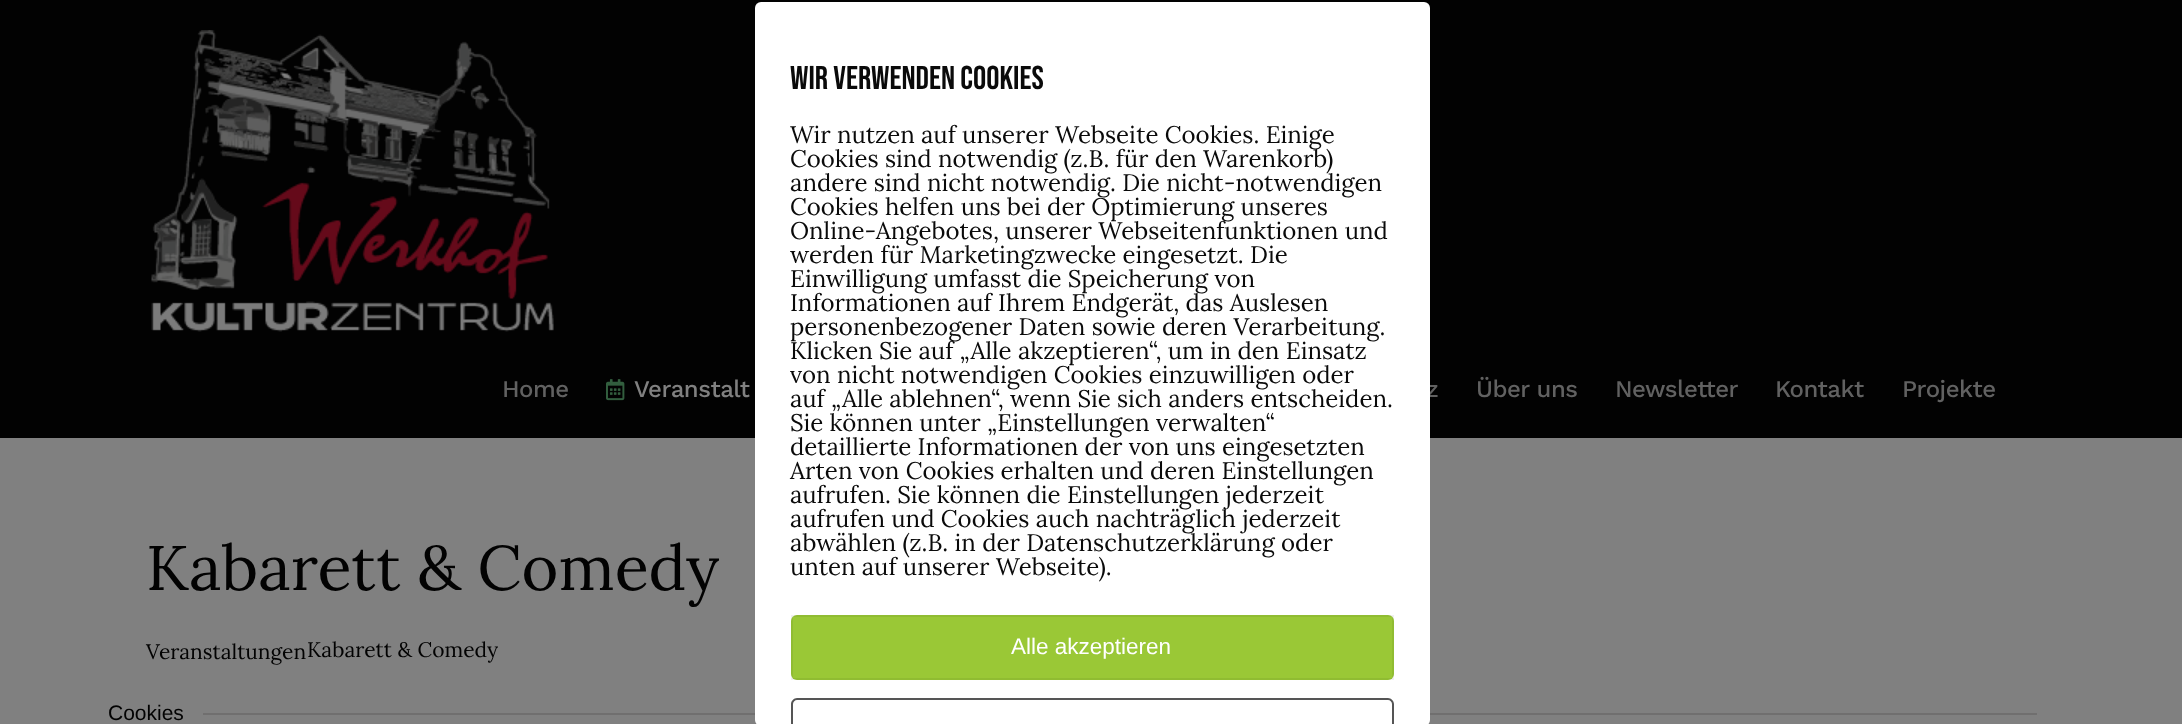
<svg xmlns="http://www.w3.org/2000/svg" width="2182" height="724">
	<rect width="100%" height="100%" fill="#808080" />
	<rect x="0" y="0" width="2182" height="438" fill="#020202" />
	<text x="1426" y="397" font-family="Work Sans" font-size="24" font-weight="500" letter-spacing="-0.5" fill="#616161">z</text>
	<rect x="203" y="713" width="1834" height="2" fill="#706F6F" />
	<rect x="755" y="2" width="675" height="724" rx="6" fill="#FFFFFF" />
	<text x="790" y="89" font-family="Bebas Neue" font-size="33" fill="#0A0A0A">Wir verwenden Cookies</text>
	<g font-family="Lora" font-size="24" fill="#0A0A0A">
		<text x="790" y="143">Wir nutzen auf unserer Webseite Cookies. Einige</text>
		<text x="790" y="167">Cookies sind notwendig (z.B. für den Warenkorb)</text>
		<text x="790" y="191">andere sind nicht notwendig. Die nicht-notwendigen</text>
		<text x="790" y="215">Cookies helfen uns bei der Optimierung unseres</text>
		<text x="790" y="239">Online-Angebotes, unserer Webseitenfunktionen und</text>
		<text x="790" y="263">werden für Marketingzwecke eingesetzt. Die</text>
		<text x="790" y="287">Einwilligung umfasst die Speicherung von</text>
		<text x="790" y="311">Informationen auf Ihrem Endgerät, das Auslesen</text>
		<text x="790" y="335">personenbezogener Daten sowie deren Verarbeitung.</text>
		<text x="790" y="359">Klicken Sie auf „Alle akzeptieren“, um in den Einsatz</text>
		<text x="790" y="383">von nicht notwendigen Cookies einzuwilligen oder</text>
		<text x="790" y="407">auf „Alle ablehnen“, wenn Sie sich anders entscheiden.</text>
		<text x="790" y="431">Sie können unter „Einstellungen verwalten“</text>
		<text x="790" y="455">detaillierte Informationen der von uns eingesetzten</text>
		<text x="790" y="479">Arten von Cookies erhalten und deren Einstellungen</text>
		<text x="790" y="503">aufrufen. Sie können die Einstellungen jederzeit</text>
		<text x="790" y="527">aufrufen und Cookies auch nachträglich jederzeit</text>
		<text x="790" y="551">abwählen (z.B. in der Datenschutzerklärung oder</text>
		<text x="790" y="575">unten auf unserer Webseite).</text>
	</g>
	<rect x="791" y="615" width="603" height="65" rx="6" fill="#9AC836" />
	<rect x="792" y="616" width="601" height="63" fill="none" stroke="#000000" stroke-opacity="0.06" stroke-width="2" />
	<text x="1011" y="654" font-family="Liberation Sans" font-size="22.5" fill="#FFFFFF">Alle akzeptieren</text>
	<path d="M797 698C794 698 791 701 791 704V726H793V704C793 702 795 700 797 700H1388C1390 700 1392 702 1392 704V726H1394V704C1394 701 1391 698 1388 698Z" fill="#555555" />
	<image x="151" y="30" width="403" height="302" href="assets/img1.png" />
	<text x="502" y="397" font-family="Work Sans" font-size="24" font-weight="500" letter-spacing="-0.5" fill="#616161">Home</text>
	<image x="606" y="379" width="19" height="22" href="assets/img2.png" />
	<text x="634" y="397" font-family="Work Sans" font-size="24" font-weight="500" letter-spacing="-0.5" fill="#808080">Veranstalt</text>
	<g font-family="Work Sans" font-size="24" font-weight="500" letter-spacing="-0.5" fill="#616161">
		<text x="1476" y="397">Über uns</text>
		<text x="1615" y="397">Newsletter</text>
		<text x="1775" y="397">Kontakt</text>
		<text x="1902" y="397">Projekte</text>
	</g>
	<text x="146" y="590" font-family="Lora" font-size="63" fill="#020202">Kabarett &amp; Comedy</text>
	<g font-family="Lora" font-size="21" fill="#020202">
		<text x="146" y="659">Veranstaltungen</text>
		<text x="307" y="657">Kabarett &amp; Comedy</text>
	</g>
	<text x="108" y="720" font-family="Liberation Sans" font-size="21" fill="#020202">Cookies</text>
</svg>
